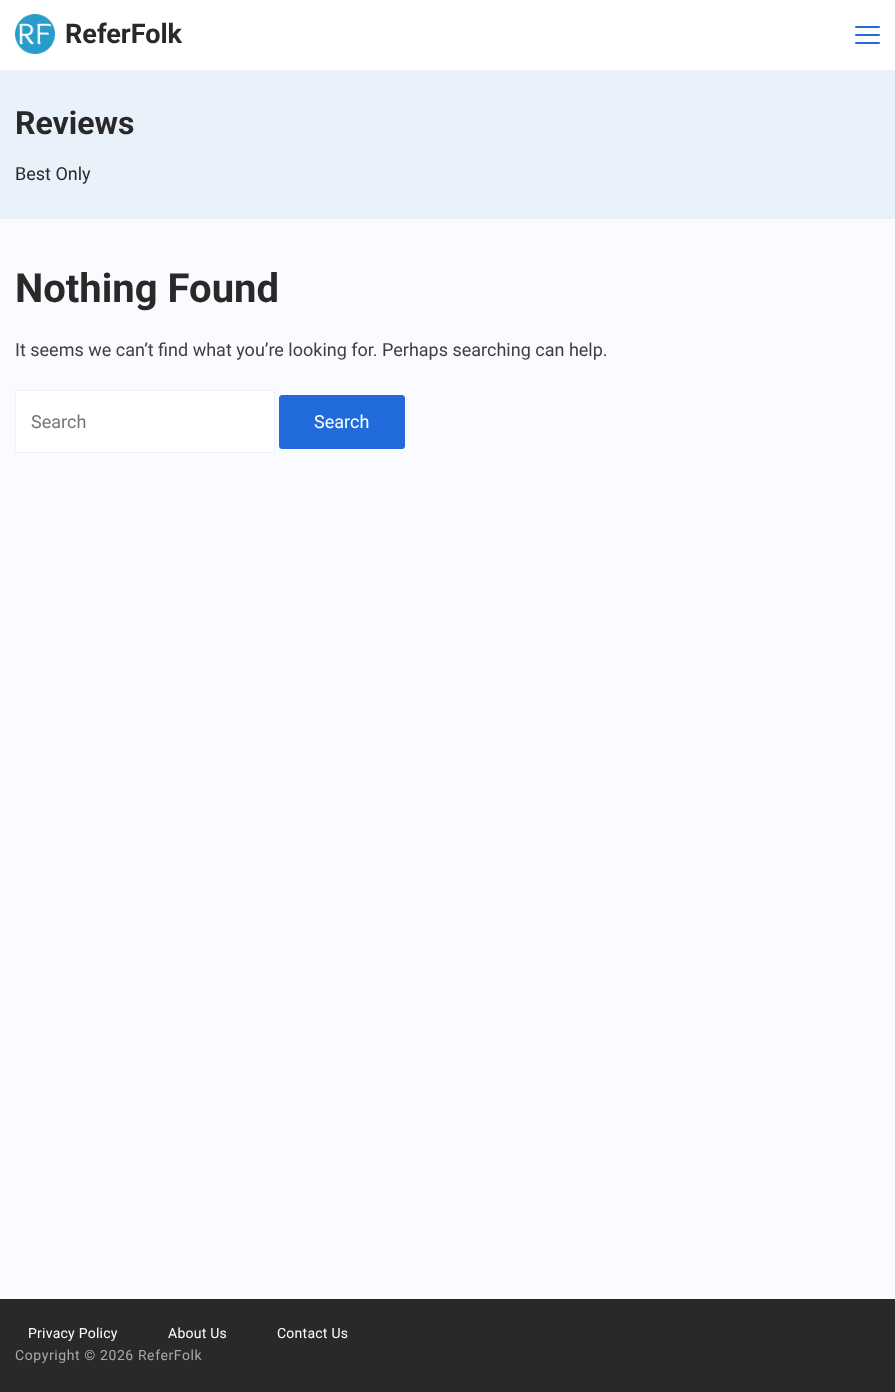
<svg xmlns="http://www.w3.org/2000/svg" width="895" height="1392">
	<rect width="100%" height="100%" fill="#F9FBFE" />
	<rect x="0" y="0" width="895" height="70" fill="#FFFFFF" />
	<image x="15" y="14" width="40" height="40" href="assets/img1.png" />
	<text x="65" y="43" font-family="Roboto" font-size="27" font-weight="700" fill="#292929">ReferFolk</text>
	<rect x="855" y="34" width="25" height="2" rx="1" fill="#216BDB" />
	<rect x="855" y="26" width="25" height="2" rx="1" fill="#216BDB" />
	<rect x="855" y="42" width="25" height="2" rx="1" fill="#216BDB" />
	<rect x="0" y="70" width="895" height="149" fill="#E9F1FA" />
	<text x="15" y="134" font-family="Roboto" font-size="32" font-weight="700" fill="#292929">Reviews</text>
	<text x="15" y="180" font-family="Roboto" font-size="18" fill="#292929">Best Only</text>
	<text x="15" y="302" font-family="Roboto" font-size="40" font-weight="700" fill="#292929">Nothing Found</text>
	<text x="15" y="356" font-family="Roboto" font-size="18" fill="#3E3E3E">It seems we can’t find what you’re looking for. Perhaps searching can help.</text>
	<rect x="15.5" y="390.5" width="259" height="62" fill="#FFFFFF" stroke="#EDF2FE" />
	<text x="31" y="428" font-family="Roboto" font-size="18" fill="#757575">Search</text>
	<rect x="279.5" y="395.5" width="125" height="53" rx="2.5" fill="#216BDB" stroke="#216BDB" />
	<text x="314" y="428" font-family="Roboto" font-size="18" fill="#FFFFFF">Search</text>
	<rect x="0" y="1299" width="895" height="93" fill="#292929" />
	<g font-family="Roboto" font-size="14" letter-spacing="0.25" fill="#FFFFFF">
		<text x="28" y="1338">Privacy Policy</text>
		<text x="168" y="1338">About Us</text>
		<text x="277" y="1338">Contact Us</text>
	</g>
	<text x="15" y="1360" font-family="Roboto" font-size="14" letter-spacing="0.6" fill="#A9A9A9">Copyright © 2026 ReferFolk</text>
</svg>
